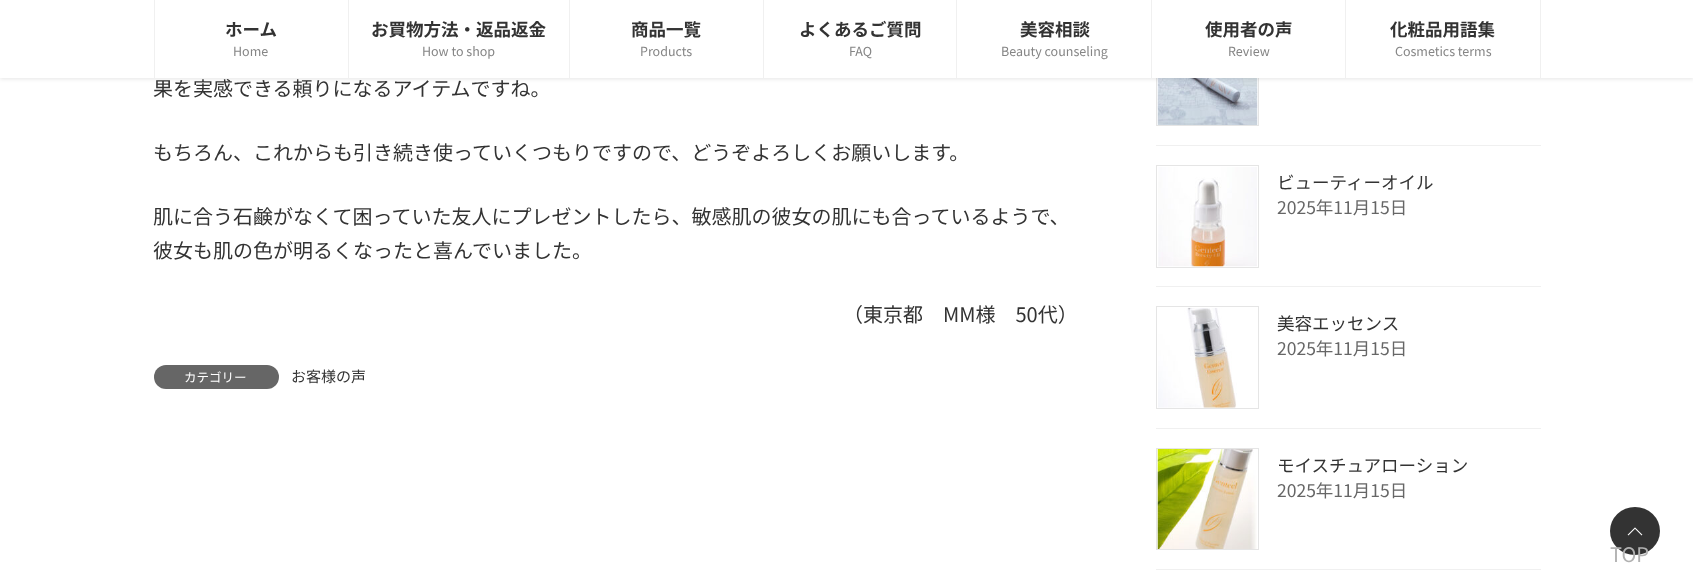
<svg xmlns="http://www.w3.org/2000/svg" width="1693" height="572">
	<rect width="100%" height="100%" fill="#FFFFFF" />
	<rect x="1156.5" y="24.5" width="102" height="101" fill="none" stroke="#E5E5E5" />
	<image x="1157" y="78" width="101" height="47" href="assets/img1.png" />
	<rect x="0" y="1" width="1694" height="78" fill="#000000" fill-opacity="0.1" filter="blur(2px)" />
	<rect x="0" y="0" width="1693" height="78" fill="#FFFFFF" />
	<rect x="348" y="0" width="1" height="78" fill="#F0F0F0" />
	<rect x="154" y="0" width="1" height="78" fill="#F0F0F0" />
	<text x="225" y="36" font-family="Noto Sans JP" font-size="17.5" font-weight="700" fill="#333333">ホーム</text>
	<text x="233" y="56" font-family="Noto Sans JP" font-size="12.5" fill="#858585">Home</text>
	<rect x="569" y="0" width="1" height="78" fill="#F0F0F0" />
	<text x="371" y="36" font-family="Noto Sans JP" font-size="17.5" font-weight="700" fill="#333333">お買物方法・返品返金</text>
	<text x="422" y="56" font-family="Noto Sans JP" font-size="12.5" fill="#858585">How to shop</text>
	<rect x="763" y="0" width="1" height="78" fill="#F0F0F0" />
	<text x="631" y="36" font-family="Noto Sans JP" font-size="17.5" font-weight="700" fill="#333333">商品一覧</text>
	<text x="640" y="56" font-family="Noto Sans JP" font-size="12.5" fill="#858585">Products</text>
	<rect x="956" y="0" width="1" height="78" fill="#F0F0F0" />
	<text x="799" y="36" font-family="Noto Sans JP" font-size="17.5" font-weight="700" fill="#333333">よくあるご質問</text>
	<text x="849" y="56" font-family="Noto Sans JP" font-size="12.5" fill="#858585">FAQ</text>
	<rect x="1151" y="0" width="1" height="78" fill="#F0F0F0" />
	<text x="1020" y="36" font-family="Noto Sans JP" font-size="17.5" font-weight="700" fill="#333333">美容相談</text>
	<text x="1001" y="56" font-family="Noto Sans JP" font-size="12.5" fill="#858585">Beauty counseling</text>
	<rect x="1345" y="0" width="1" height="78" fill="#F0F0F0" />
	<text x="1205" y="36" font-family="Noto Sans JP" font-size="17.5" font-weight="700" fill="#333333">使用者の声</text>
	<text x="1228" y="56" font-family="Noto Sans JP" font-size="12.5" fill="#858585">Review</text>
	<rect x="1540" y="0" width="1" height="78" fill="#F0F0F0" />
	<text x="1390" y="36" font-family="Noto Sans JP" font-size="17.5" font-weight="700" fill="#333333">化粧品用語集</text>
	<text x="1395" y="56" font-family="Noto Sans JP" font-size="12.5" fill="#858585">Cosmetics terms</text>
	<g font-family="Noto Sans JP" font-size="20" fill="#333333">
		<text x="153" y="96">果を実感できる頼りになるアイテムですね。</text>
		<text x="153" y="160">もちろん、これからも引き続き使っていくつもりですので、どうぞよろしくお願いします。</text>
		<text x="153" y="224">肌に合う石鹸がなくて困っていた友人にプレゼントしたら、敏感肌の彼女の肌にも合っているようで、</text>
		<text x="153" y="258">彼女も肌の色が明るくなったと喜んでいました。</text>
		<text x="843" y="322">（東京都　MM様　50代）</text>
	</g>
	<rect x="154" y="365" width="125" height="24" rx="12" fill="#666666" />
	<text x="184" y="382" font-family="Noto Sans JP" font-size="12.5" fill="#FFFFFF">カテゴリー</text>
	<text x="291" y="382" font-family="Noto Sans JP" font-size="15" fill="#333333">お客様の声</text>
	<rect x="1156" y="145" width="385" height="1" fill="#F0F0F0" />
	<rect x="1156" y="286" width="385" height="1" fill="#F0F0F0" />
	<rect x="1156.5" y="165.5" width="102" height="102" fill="none" stroke="#E5E5E5" />
	<image x="1158" y="167" width="99" height="100" href="assets/img2.png" />
	<text x="1277" y="189" font-family="Noto Sans JP" font-size="17.5" fill="#333333">ビューティーオイル</text>
	<text x="1277" y="214" font-family="Noto Sans JP" font-size="17.5" fill="#666666">2025年11月15日</text>
	<rect x="1156" y="428" width="385" height="1" fill="#F0F0F0" />
	<rect x="1156.5" y="306.5" width="102" height="102" fill="none" stroke="#E5E5E5" />
	<image x="1158" y="307" width="79" height="101" href="assets/img3.png" />
	<text x="1277" y="330" font-family="Noto Sans JP" font-size="17.5" fill="#333333">美容エッセンス</text>
	<text x="1277" y="355" font-family="Noto Sans JP" font-size="17.5" fill="#666666">2025年11月15日</text>
	<rect x="1156" y="569" width="385" height="1" fill="#F0F0F0" />
	<rect x="1156.5" y="448.5" width="102" height="101" fill="none" stroke="#E5E5E5" />
	<image x="1157" y="449" width="100" height="100" href="assets/img4.png" />
	<text x="1277" y="472" font-family="Noto Sans JP" font-size="17.5" fill="#333333">モイスチュアローション</text>
	<text x="1277" y="497" font-family="Noto Sans JP" font-size="17.5" fill="#666666">2025年11月15日</text>
	<ellipse cx="1635" cy="531" rx="25" ry="24" fill="#333333" />
	<image x="1627" y="527" width="16" height="9" href="assets/img5.png" />
	<text x="1610" y="562" font-family="Noto Sans JP" font-size="20" fill="#B1B1B1">TOP</text>
</svg>
